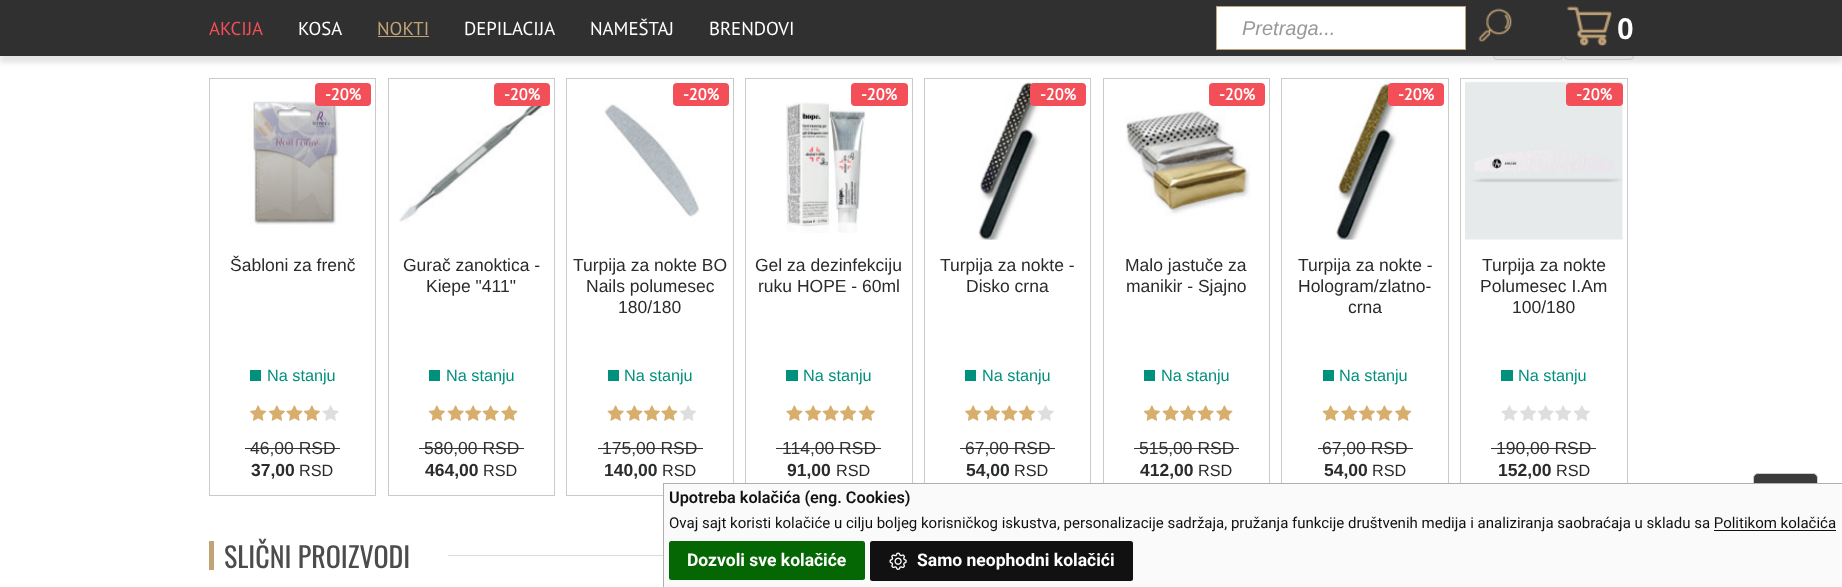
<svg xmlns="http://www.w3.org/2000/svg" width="1842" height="587">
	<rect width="100%" height="100%" fill="#FFFFFF" />
	<rect x="1493.5" y="9.5" width="69" height="50" rx="3.5" fill="#FAFAFA" stroke="#E0E0E0" />
	<rect x="1564.5" y="9.5" width="69" height="50" rx="3.5" fill="#FAFAFA" stroke="#E0E0E0" />
	<rect x="0" y="6" width="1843" height="57" fill="#000000" fill-opacity="0.1" filter="blur(2.5px)" />
	<rect x="0" y="0" width="1842" height="56" fill="#303030" />
	<text x="209" y="35" font-family="PT Sans" font-size="18.75" fill="#F34F58">AKCIJA</text>
	<text x="298" y="35" font-family="PT Sans" font-size="18.75" fill="#FFFFFF">KOSA</text>
	<text x="377" y="35" font-family="PT Sans" font-size="18.75" fill="#C1A377">NOKTI</text>
	<rect x="378" y="36" width="51" height="1" fill="#C1A377" />
	<g font-family="PT Sans" font-size="18.75" fill="#FFFFFF">
		<text x="464" y="35">DEPILACIJA</text>
		<text x="590" y="35">NAMEŠTAJ</text>
		<text x="709" y="35">BRENDOVI</text>
	</g>
	<rect x="1216.5" y="6.5" width="249" height="43" fill="#FFFFFF" stroke="#C1A377" />
	<text x="1242" y="35" font-family="Liberation Sans" font-size="20" font-style="italic" fill="#999999">Pretraga...</text>
	<image x="1478" y="8" width="34" height="34" href="assets/img1.png" />
	<image x="1567" y="6" width="45" height="41" href="assets/img2.png" />
	<text x="1617" y="39" font-family="Liberation Sans" font-size="30" font-weight="700" fill="#FFFFFF">0</text>
	<rect x="209.5" y="78.5" width="166" height="417" fill="none" stroke="#CCC9C9" />
	<image x="248" y="101" width="92" height="124" href="assets/img3.png" />
	<rect x="315" y="83" width="56" height="23" rx="4" fill="#F34F58" />
	<text x="325" y="100" font-family="PT Sans" font-size="16.25" font-weight="700" fill="#FFFFFF">-20%</text>
	<text x="230" y="271" font-family="Liberation Sans" font-size="17.5" fill="#2A2B2B">Šabloni za frenč</text>
	<rect x="250" y="370" width="11" height="11" fill="#00917C" />
	<text x="267" y="381" font-family="Liberation Sans" font-size="16.25" fill="#00917C">Na stanju</text>
	<image x="250" y="405" width="17" height="16" href="assets/img4.png" />
	<image x="268" y="405" width="17" height="16" href="assets/img5.png" />
	<image x="286" y="405" width="17" height="16" href="assets/img6.png" />
	<image x="303" y="405" width="17" height="16" href="assets/img5.png" />
	<image x="322" y="405" width="17" height="16" href="assets/img7.png" />
	<text x="250" y="454" font-family="Liberation Sans" font-size="17.5" fill="#333333">46,00 RSD</text>
	<rect x="245" y="448" width="95" height="1" fill="#333333" />
	<text x="251" y="476" font-family="Liberation Sans" font-size="17.5" font-weight="700" fill="#2A2B2B">37,00</text>
	<text x="299" y="476" font-family="Liberation Sans" font-size="16.25" fill="#2A2B2B">RSD</text>
	<rect x="388.5" y="78.5" width="166" height="417" fill="none" stroke="#CCC9C9" />
	<image x="399" y="97" width="147" height="125" href="assets/img8.png" />
	<rect x="494" y="83" width="56" height="23" rx="4" fill="#F34F58" />
	<text x="504" y="100" font-family="PT Sans" font-size="16.25" font-weight="700" fill="#FFFFFF">-20%</text>
	<g font-family="Liberation Sans" font-size="17.5" fill="#2A2B2B">
		<text x="403" y="271">Gurač zanoktica -</text>
		<text x="426" y="292">Kiepe "411"</text>
	</g>
	<rect x="429" y="370" width="11" height="11" fill="#00917C" />
	<text x="446" y="381" font-family="Liberation Sans" font-size="16.25" fill="#00917C">Na stanju</text>
	<image x="428" y="405" width="17" height="16" href="assets/img5.png" />
	<image x="447" y="405" width="17" height="16" href="assets/img9.png" />
	<image x="465" y="405" width="17" height="16" href="assets/img4.png" />
	<image x="482" y="405" width="17" height="16" href="assets/img9.png" />
	<image x="501" y="405" width="17" height="16" href="assets/img6.png" />
	<text x="424" y="454" font-family="Liberation Sans" font-size="17.5" fill="#333333">580,00 RSD</text>
	<rect x="419" y="448" width="105" height="1" fill="#333333" />
	<text x="425" y="476" font-family="Liberation Sans" font-size="17.5" font-weight="700" fill="#2A2B2B">464,00</text>
	<text x="483" y="476" font-family="Liberation Sans" font-size="16.25" fill="#2A2B2B">RSD</text>
	<rect x="566.5" y="78.5" width="167" height="417" fill="none" stroke="#CCC9C9" />
	<image x="604" y="104" width="96" height="113" href="assets/img10.png" />
	<rect x="673" y="83" width="56" height="23" rx="4" fill="#F34F58" />
	<text x="683" y="100" font-family="PT Sans" font-size="16.25" font-weight="700" fill="#FFFFFF">-20%</text>
	<g font-family="Liberation Sans" font-size="17.5" fill="#2A2B2B">
		<text x="573" y="271">Turpija za nokte BO</text>
		<text x="586" y="292">Nails polumesec</text>
		<text x="618" y="313">180/180</text>
	</g>
	<rect x="608" y="370" width="11" height="11" fill="#00917C" />
	<text x="624" y="381" font-family="Liberation Sans" font-size="16.25" fill="#00917C">Na stanju</text>
	<image x="607" y="405" width="17" height="16" href="assets/img9.png" />
	<image x="626" y="405" width="17" height="16" href="assets/img6.png" />
	<image x="643" y="405" width="17" height="16" href="assets/img5.png" />
	<image x="661" y="405" width="17" height="16" href="assets/img6.png" />
	<image x="680" y="405" width="16" height="16" href="assets/img11.png" />
	<text x="602" y="454" font-family="Liberation Sans" font-size="17.5" fill="#333333">175,00 RSD</text>
	<rect x="598" y="448" width="105" height="1" fill="#333333" />
	<text x="604" y="476" font-family="Liberation Sans" font-size="17.5" font-weight="700" fill="#2A2B2B">140,00</text>
	<text x="662" y="476" font-family="Liberation Sans" font-size="16.25" fill="#2A2B2B">RSD</text>
	<rect x="745.5" y="78.5" width="167" height="417" fill="none" stroke="#CCC9C9" />
	<image x="786" y="102" width="80" height="131" href="assets/img12.png" />
	<rect x="851" y="83" width="57" height="23" rx="4" fill="#F34F58" />
	<text x="861" y="100" font-family="PT Sans" font-size="16.25" font-weight="700" fill="#FFFFFF">-20%</text>
	<g font-family="Liberation Sans" font-size="17.5" fill="#2A2B2B">
		<text x="755" y="271">Gel za dezinfekciju</text>
		<text x="758" y="292">ruku HOPE - 60ml</text>
	</g>
	<rect x="786" y="370" width="12" height="11" fill="#00917C" />
	<text x="803" y="381" font-family="Liberation Sans" font-size="16.25" fill="#00917C">Na stanju</text>
	<image x="786" y="405" width="17" height="16" href="assets/img6.png" />
	<image x="805" y="405" width="17" height="16" href="assets/img4.png" />
	<image x="822" y="405" width="17" height="16" href="assets/img9.png" />
	<image x="840" y="405" width="17" height="16" href="assets/img4.png" />
	<image x="858" y="405" width="17" height="16" href="assets/img5.png" />
	<text x="782" y="454" font-family="Liberation Sans" font-size="17.5" fill="#333333">114,00 RSD</text>
	<rect x="776" y="448" width="105" height="1" fill="#333333" />
	<text x="787" y="476" font-family="Liberation Sans" font-size="17.5" font-weight="700" fill="#2A2B2B">91,00</text>
	<text x="836" y="476" font-family="Liberation Sans" font-size="16.25" fill="#2A2B2B">RSD</text>
	<rect x="924.5" y="78.5" width="166" height="417" fill="none" stroke="#CCC9C9" />
	<image x="978" y="82" width="65" height="158" href="assets/img13.png" />
	<rect x="1030" y="83" width="56" height="23" rx="4" fill="#F34F58" />
	<text x="1040" y="100" font-family="PT Sans" font-size="16.25" font-weight="700" fill="#FFFFFF">-20%</text>
	<g font-family="Liberation Sans" font-size="17.5" fill="#2A2B2B">
		<text x="940" y="271">Turpija za nokte -</text>
		<text x="966" y="292">Disko crna</text>
	</g>
	<rect x="965" y="370" width="11" height="11" fill="#00917C" />
	<text x="982" y="381" font-family="Liberation Sans" font-size="16.25" fill="#00917C">Na stanju</text>
	<image x="965" y="405" width="17" height="16" href="assets/img4.png" />
	<image x="983" y="405" width="17" height="16" href="assets/img5.png" />
	<image x="1001" y="405" width="17" height="16" href="assets/img6.png" />
	<image x="1018" y="405" width="17" height="16" href="assets/img5.png" />
	<image x="1037" y="405" width="17" height="16" href="assets/img7.png" />
	<text x="965" y="454" font-family="Liberation Sans" font-size="17.5" fill="#333333">67,00 RSD</text>
	<rect x="960" y="448" width="95" height="1" fill="#333333" />
	<text x="966" y="476" font-family="Liberation Sans" font-size="17.5" font-weight="700" fill="#2A2B2B">54,00</text>
	<text x="1014" y="476" font-family="Liberation Sans" font-size="16.25" fill="#2A2B2B">RSD</text>
	<rect x="1103.5" y="78.5" width="166" height="417" fill="none" stroke="#CCC9C9" />
	<rect x="1209" y="83" width="56" height="23" rx="4" fill="#F34F58" />
	<text x="1219" y="100" font-family="PT Sans" font-size="16.25" font-weight="700" fill="#FFFFFF">-20%</text>
	<image x="1125" y="110" width="126" height="107" href="assets/img14.png" />
	<g font-family="Liberation Sans" font-size="17.5" fill="#2A2B2B">
		<text x="1125" y="271">Malo jastuče za</text>
		<text x="1126" y="292">manikir - Sjajno</text>
	</g>
	<rect x="1144" y="370" width="11" height="11" fill="#00917C" />
	<text x="1161" y="381" font-family="Liberation Sans" font-size="16.25" fill="#00917C">Na stanju</text>
	<image x="1143" y="405" width="17" height="16" href="assets/img5.png" />
	<image x="1162" y="405" width="17" height="16" href="assets/img9.png" />
	<image x="1180" y="405" width="17" height="16" href="assets/img4.png" />
	<image x="1197" y="405" width="17" height="16" href="assets/img9.png" />
	<image x="1216" y="405" width="17" height="16" href="assets/img6.png" />
	<text x="1139" y="454" font-family="Liberation Sans" font-size="17.5" fill="#333333">515,00 RSD</text>
	<rect x="1134" y="448" width="105" height="1" fill="#333333" />
	<text x="1140" y="476" font-family="Liberation Sans" font-size="17.5" font-weight="700" fill="#2A2B2B">412,00</text>
	<text x="1198" y="476" font-family="Liberation Sans" font-size="16.25" fill="#2A2B2B">RSD</text>
	<rect x="1281.5" y="78.5" width="167" height="417" fill="none" stroke="#CCC9C9" />
	<image x="1335" y="82" width="65" height="158" href="assets/img15.png" />
	<rect x="1388" y="83" width="56" height="23" rx="4" fill="#F34F58" />
	<text x="1398" y="100" font-family="PT Sans" font-size="16.25" font-weight="700" fill="#FFFFFF">-20%</text>
	<g font-family="Liberation Sans" font-size="17.5" fill="#2A2B2B">
		<text x="1298" y="271">Turpija za nokte -</text>
		<text x="1298" y="292">Hologram/zlatno-</text>
		<text x="1348" y="313">crna</text>
	</g>
	<rect x="1323" y="370" width="11" height="11" fill="#00917C" />
	<text x="1339" y="381" font-family="Liberation Sans" font-size="16.25" fill="#00917C">Na stanju</text>
	<image x="1322" y="405" width="17" height="16" href="assets/img9.png" />
	<image x="1341" y="405" width="17" height="16" href="assets/img6.png" />
	<image x="1358" y="405" width="17" height="16" href="assets/img5.png" />
	<image x="1376" y="405" width="17" height="16" href="assets/img6.png" />
	<image x="1395" y="405" width="17" height="16" href="assets/img4.png" />
	<text x="1322" y="454" font-family="Liberation Sans" font-size="17.5" fill="#333333">67,00 RSD</text>
	<rect x="1318" y="448" width="95" height="1" fill="#333333" />
	<text x="1324" y="476" font-family="Liberation Sans" font-size="17.5" font-weight="700" fill="#2A2B2B">54,00</text>
	<text x="1372" y="476" font-family="Liberation Sans" font-size="16.25" fill="#2A2B2B">RSD</text>
	<rect x="1460.5" y="78.5" width="167" height="417" fill="none" stroke="#CCC9C9" />
	<image x="1465" y="81" width="158" height="159" href="assets/img16.png" />
	<rect x="1566" y="83" width="57" height="23" rx="4" fill="#F34F58" />
	<text x="1576" y="100" font-family="PT Sans" font-size="16.25" font-weight="700" fill="#FFFFFF">-20%</text>
	<g font-family="Liberation Sans" font-size="17.5" fill="#2A2B2B">
		<text x="1482" y="271">Turpija za nokte</text>
		<text x="1480" y="292">Polumesec I.Am</text>
		<text x="1512" y="313">100/180</text>
	</g>
	<rect x="1501" y="370" width="12" height="11" fill="#00917C" />
	<text x="1518" y="381" font-family="Liberation Sans" font-size="16.25" fill="#00917C">Na stanju</text>
	<image x="1501" y="405" width="17" height="16" href="assets/img17.png" />
	<image x="1520" y="405" width="16" height="16" href="assets/img11.png" />
	<image x="1537" y="405" width="17" height="16" href="assets/img7.png" />
	<image x="1555" y="405" width="16" height="16" href="assets/img11.png" />
	<image x="1574" y="405" width="16" height="16" href="assets/img18.png" />
	<text x="1496" y="454" font-family="Liberation Sans" font-size="17.5" fill="#333333">190,00 RSD</text>
	<rect x="1491" y="448" width="105" height="1" fill="#333333" />
	<text x="1498" y="476" font-family="Liberation Sans" font-size="17.5" font-weight="700" fill="#2A2B2B">152,00</text>
	<text x="1556" y="476" font-family="Liberation Sans" font-size="16.25" fill="#2A2B2B">RSD</text>
	<rect x="209" y="541" width="5" height="29" fill="#C1A377" />
	<text x="224" y="568" font-family="Oswald" font-size="28" fill="#4C4C4C">SLIČNI PROIZVODI</text>
	<rect x="448" y="555" width="215" height="1" fill="#DCDCDC" />
	<rect x="1753.5" y="473.5" width="64" height="64" rx="4.5" fill="#3B3B3B" stroke="#CECECE" />
	<rect x="663.5" y="483.5" width="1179" height="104" fill="#FAFAFA" stroke="#B0B0B0" />
	<text x="669" y="503" font-family="Roboto" font-size="16.25" font-weight="600" fill="#111111">Upotreba kolačića (eng. Cookies)</text>
	<text x="669" y="528" font-family="Roboto" font-size="15" fill="#111111">Ovaj sajt koristi kolačiće u cilju boljeg korisničkog iskustva, personalizacije sadržaja, pružanja funkcije društvenih medija i analiziranja saobraćaja u skladu sa Politikom kolačića</text>
	<rect x="1714" y="530" width="122" height="1" fill="#111111" />
	<rect x="669" y="541" width="196" height="39" rx="2.5" fill="#046704" />
	<text x="687" y="566" font-family="Roboto" font-size="17.5" font-weight="700" fill="#FFFFFF">Dozvoli sve kolačiće</text>
	<rect x="870" y="541" width="263" height="40" rx="2.5" fill="#111111" />
	<image x="889" y="552" width="18" height="18" href="assets/img19.png" />
	<text x="917" y="566" font-family="Roboto" font-size="17.5" font-weight="700" fill="#FFFFFF">Samo neophodni kolačići</text>
</svg>
